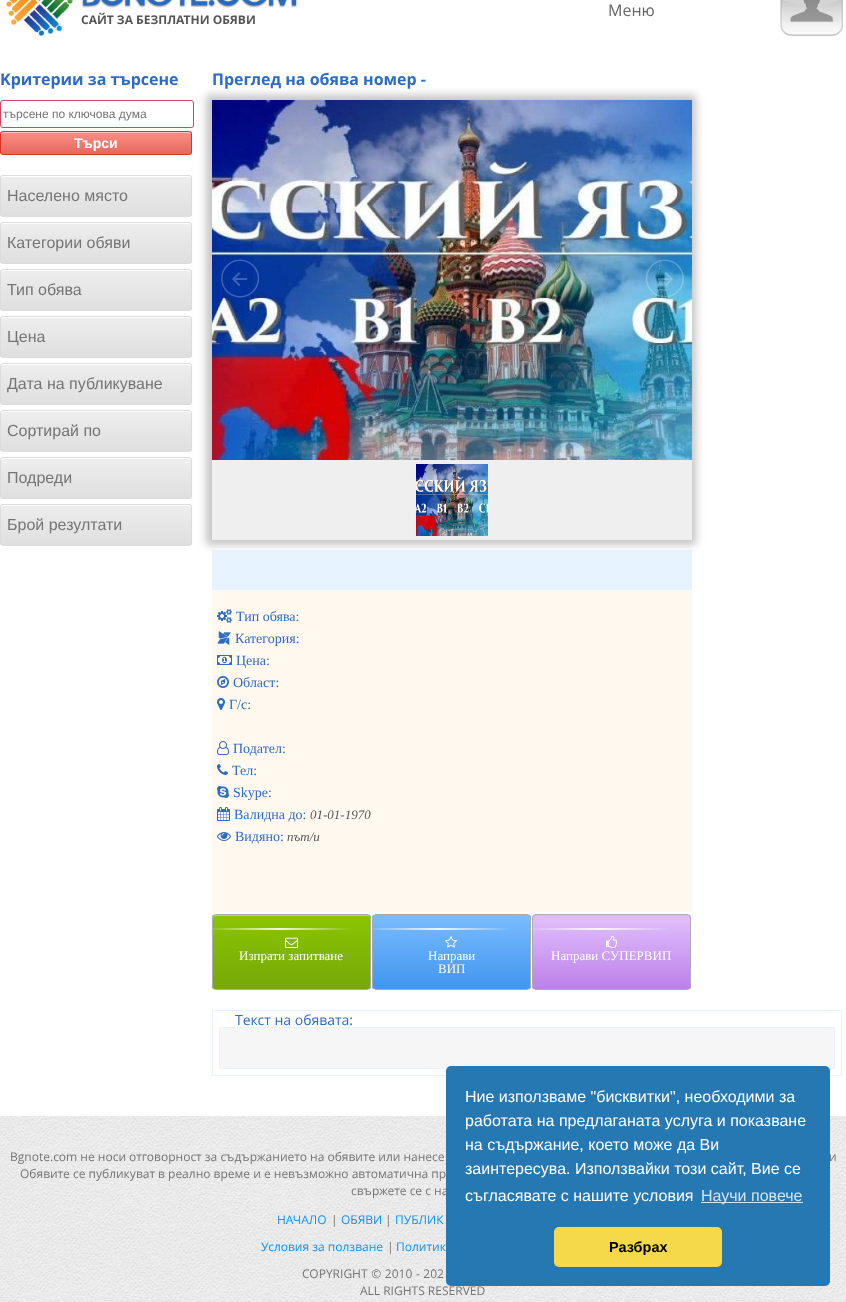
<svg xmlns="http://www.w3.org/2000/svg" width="846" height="1302">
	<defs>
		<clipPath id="clip1"><rect x="0" y="131" width="192" height="24" rx="3" /></clipPath>
		<linearGradient id="g1" gradientUnits="userSpaceOnUse" x1="96" y1="132" x2="96" y2="154"><stop offset="0.05" stop-color="#FC8D83" /><stop offset="1" stop-color="#E4685D" /></linearGradient>
		<clipPath id="clip2"><rect x="0" y="175" width="192" height="42" rx="3" /></clipPath>
		<linearGradient id="g2" gradientUnits="userSpaceOnUse" x1="96" y1="176" x2="96" y2="216"><stop offset="0.05" stop-color="#EDEDED" /><stop offset="1" stop-color="#DFDFDF" /></linearGradient>
		<clipPath id="clip3"><rect x="0" y="222" width="192" height="42" rx="3" /></clipPath>
		<linearGradient id="g3" gradientUnits="userSpaceOnUse" x1="96" y1="223" x2="96" y2="263"><stop offset="0.05" stop-color="#EDEDED" /><stop offset="1" stop-color="#DFDFDF" /></linearGradient>
		<clipPath id="clip4"><rect x="0" y="269" width="192" height="42" rx="3" /></clipPath>
		<linearGradient id="g4" gradientUnits="userSpaceOnUse" x1="96" y1="270" x2="96" y2="310"><stop offset="0.05" stop-color="#EDEDED" /><stop offset="1" stop-color="#DFDFDF" /></linearGradient>
		<clipPath id="clip5"><rect x="0" y="316" width="192" height="42" rx="3" /></clipPath>
		<linearGradient id="g5" gradientUnits="userSpaceOnUse" x1="96" y1="317" x2="96" y2="357"><stop offset="0.05" stop-color="#EDEDED" /><stop offset="1" stop-color="#DFDFDF" /></linearGradient>
		<clipPath id="clip6"><rect x="0" y="363" width="192" height="42" rx="3" /></clipPath>
		<linearGradient id="g6" gradientUnits="userSpaceOnUse" x1="96" y1="364" x2="96" y2="404"><stop offset="0.05" stop-color="#EDEDED" /><stop offset="1" stop-color="#DFDFDF" /></linearGradient>
		<clipPath id="clip7"><rect x="0" y="410" width="192" height="42" rx="3" /></clipPath>
		<linearGradient id="g7" gradientUnits="userSpaceOnUse" x1="96" y1="411" x2="96" y2="451"><stop offset="0.05" stop-color="#EDEDED" /><stop offset="1" stop-color="#DFDFDF" /></linearGradient>
		<clipPath id="clip8"><rect x="0" y="457" width="192" height="42" rx="3" /></clipPath>
		<linearGradient id="g8" gradientUnits="userSpaceOnUse" x1="96" y1="458" x2="96" y2="498"><stop offset="0.05" stop-color="#EDEDED" /><stop offset="1" stop-color="#DFDFDF" /></linearGradient>
		<clipPath id="clip9"><rect x="0" y="504" width="192" height="42" rx="3" /></clipPath>
		<linearGradient id="g9" gradientUnits="userSpaceOnUse" x1="96" y1="505" x2="96" y2="545"><stop offset="0.05" stop-color="#EDEDED" /><stop offset="1" stop-color="#DFDFDF" /></linearGradient>
		<clipPath id="clip10"><rect x="212" y="914" width="159" height="76" rx="4" /></clipPath>
		<linearGradient id="g10" gradientUnits="userSpaceOnUse" x1="292" y1="915" x2="292" y2="989"><stop offset="0.05" stop-color="#89C403" /><stop offset="1" stop-color="#77A809" /></linearGradient>
		<linearGradient id="g11" gradientUnits="userSpaceOnUse" x1="206" y1="929" x2="351" y2="929"><stop offset="0" stop-color="#FFFFFF" stop-opacity="0" /><stop offset="0.5" stop-color="#FFFFFF" stop-opacity="0.9" /><stop offset="1" stop-color="#FFFFFF" stop-opacity="0" /></linearGradient>
		<clipPath id="clip11"><rect x="372" y="914" width="159" height="76" rx="4" /></clipPath>
		<linearGradient id="g12" gradientUnits="userSpaceOnUse" x1="452" y1="915" x2="452" y2="989"><stop offset="0" stop-color="#7ABCFF" /><stop offset="0.44" stop-color="#60ABF8" /><stop offset="1" stop-color="#4096EE" /></linearGradient>
		<linearGradient id="g13" gradientUnits="userSpaceOnUse" x1="366" y1="929" x2="511" y2="929"><stop offset="0" stop-color="#FFFFFF" stop-opacity="0" /><stop offset="0.5" stop-color="#FFFFFF" stop-opacity="0.9" /><stop offset="1" stop-color="#FFFFFF" stop-opacity="0" /></linearGradient>
		<clipPath id="clip12"><rect x="532" y="914" width="159" height="76" rx="4" /></clipPath>
		<linearGradient id="g14" gradientUnits="userSpaceOnUse" x1="612" y1="915" x2="612" y2="989"><stop offset="0.05" stop-color="#DFBDFA" /><stop offset="1" stop-color="#BC80EA" /></linearGradient>
		<linearGradient id="g15" gradientUnits="userSpaceOnUse" x1="526" y1="929" x2="671" y2="929"><stop offset="0" stop-color="#FFFFFF" stop-opacity="0" /><stop offset="0.5" stop-color="#FFFFFF" stop-opacity="0.9" /><stop offset="1" stop-color="#FFFFFF" stop-opacity="0" /></linearGradient>
	</defs>
	<rect width="100%" height="100%" fill="#FFFFFF" />
	<text x="608" y="16" font-family="Open Sans" font-size="16" fill="#666666">Меню</text>
	<image x="780" y="0" width="63" height="37" href="assets/img1.png" />
	<image x="3" y="0" width="298" height="39" href="assets/img2.png" />
	<text x="81" y="24" font-family="Open Sans" font-size="12" font-weight="700" fill="#555555">САЙТ ЗА БЕЗПЛАТНИ ОБЯВИ</text>
	<text x="0" y="85" font-family="Open Sans" font-size="16" font-weight="700" fill="#2C6CC3">Kритерии за търсене</text>
	<rect x="0.5" y="100.5" width="193" height="27" rx="2.5" fill="none" stroke="#D5445C" />
	<text x="3" y="118" font-family="Liberation Sans" font-size="12" fill="#757575">търсене по ключова дума</text>
	<g clip-path="url(#clip1)">
		<rect x="0" y="132" width="192" height="22" fill="url(#g1)" />
	</g>
	<path d="M3 133H189L191 134V135V134C191 133 190 132 189 132H3C2 132 1 133 1 134V135C1 134 2 133 3 133Z" fill="#F7C5C0" />
	<rect x="0.5" y="131.5" width="191" height="23" rx="2.5" fill="none" stroke="#D83526" />
	<text x="74" y="148" font-family="Liberation Sans" font-size="14" font-weight="700" fill="#FFFFFF">Търси</text>
	<g clip-path="url(#clip2)">
		<rect x="0" y="176" width="192" height="40" fill="url(#g2)" />
	</g>
	<path d="M3 177H189L191 178V179V178C191 177 190 176 189 176H3C2 176 1 177 1 178V179C1 178 2 177 3 177Z" fill="#FFFFFF" />
	<rect x="0.5" y="175.5" width="191" height="41" rx="2.5" fill="none" stroke="#DCDCDC" />
	<text x="7" y="201" font-family="Liberation Sans" font-size="16" fill="#757575">Населено място</text>
	<g clip-path="url(#clip3)">
		<rect x="0" y="223" width="192" height="40" fill="url(#g3)" />
	</g>
	<path d="M3 224H189L191 225V226V225C191 224 190 223 189 223H3C2 223 1 224 1 225V226C1 225 2 224 3 224Z" fill="#FFFFFF" />
	<rect x="0.5" y="222.5" width="191" height="41" rx="2.5" fill="none" stroke="#DCDCDC" />
	<text x="7" y="248" font-family="Liberation Sans" font-size="16" fill="#757575">Категории обяви</text>
	<g clip-path="url(#clip4)">
		<rect x="0" y="270" width="192" height="40" fill="url(#g4)" />
	</g>
	<path d="M3 271H189L191 272V273V272C191 271 190 270 189 270H3C2 270 1 271 1 272V273C1 272 2 271 3 271Z" fill="#FFFFFF" />
	<rect x="0.5" y="269.5" width="191" height="41" rx="2.5" fill="none" stroke="#DCDCDC" />
	<text x="7" y="295" font-family="Liberation Sans" font-size="16" fill="#757575">Тип обява</text>
	<g clip-path="url(#clip5)">
		<rect x="0" y="317" width="192" height="40" fill="url(#g5)" />
	</g>
	<path d="M3 318H189L191 319V320V319C191 318 190 317 189 317H3C2 317 1 318 1 319V320C1 319 2 318 3 318Z" fill="#FFFFFF" />
	<rect x="0.5" y="316.5" width="191" height="41" rx="2.5" fill="none" stroke="#DCDCDC" />
	<text x="7" y="342" font-family="Liberation Sans" font-size="16" fill="#757575">Цена</text>
	<g clip-path="url(#clip6)">
		<rect x="0" y="364" width="192" height="40" fill="url(#g6)" />
	</g>
	<path d="M3 365H189L191 366V367V366C191 365 190 364 189 364H3C2 364 1 365 1 366V367C1 366 2 365 3 365Z" fill="#FFFFFF" />
	<rect x="0.5" y="363.5" width="191" height="41" rx="2.5" fill="none" stroke="#DCDCDC" />
	<text x="7" y="389" font-family="Liberation Sans" font-size="16" fill="#757575">Дата на публикуване</text>
	<g clip-path="url(#clip7)">
		<rect x="0" y="411" width="192" height="40" fill="url(#g7)" />
	</g>
	<path d="M3 412H189L191 413V414V413C191 412 190 411 189 411H3C2 411 1 412 1 413V414C1 413 2 412 3 412Z" fill="#FFFFFF" />
	<rect x="0.5" y="410.5" width="191" height="41" rx="2.5" fill="none" stroke="#DCDCDC" />
	<text x="7" y="436" font-family="Liberation Sans" font-size="16" fill="#757575">Сортирай по</text>
	<g clip-path="url(#clip8)">
		<rect x="0" y="458" width="192" height="40" fill="url(#g8)" />
	</g>
	<path d="M3 459H189L191 460V461V460C191 459 190 458 189 458H3C2 458 1 459 1 460V461C1 460 2 459 3 459Z" fill="#FFFFFF" />
	<rect x="0.5" y="457.5" width="191" height="41" rx="2.5" fill="none" stroke="#DCDCDC" />
	<text x="7" y="483" font-family="Liberation Sans" font-size="16" fill="#757575">Подреди</text>
	<g clip-path="url(#clip9)">
		<rect x="0" y="505" width="192" height="40" fill="url(#g9)" />
	</g>
	<path d="M3 506H189L191 507V508V507C191 506 190 505 189 505H3C2 505 1 506 1 507V508C1 507 2 506 3 506Z" fill="#FFFFFF" />
	<rect x="0.5" y="504.5" width="191" height="41" rx="2.5" fill="none" stroke="#DCDCDC" />
	<text x="7" y="530" font-family="Liberation Sans" font-size="16" fill="#757575">Брой резултати</text>
	<rect x="206" y="95" width="490" height="450" fill="#C4C4C4" filter="blur(4px)" />
	<text x="212" y="85" font-family="Open Sans" font-size="16" font-weight="700" fill="#2C6CC3">Преглед на обява номер -</text>
	<image x="212" y="100" width="480" height="360" href="assets/img3.png" />
	<image x="221" y="259" width="39" height="39" href="assets/img4.png" />
	<image x="645" y="259" width="39" height="39" href="assets/img5.png" />
	<rect x="212" y="460" width="480" height="80" fill="#EFEFEF" />
	<image x="416" y="464" width="72" height="72" href="assets/img6.png" />
	<rect x="212" y="550" width="480" height="40" fill="#E6F2FF" />
	<rect x="212" y="590" width="480" height="322" fill="#FFF9EF" />
	<image x="217" y="609" width="15" height="14" href="assets/img7.png" />
	<text x="236" y="621" font-family="Liberation Serif" font-size="14" fill="#2C6CC3">Тип обява:</text>
	<image x="217" y="631" width="14" height="14" href="assets/img8.png" />
	<text x="235" y="643" font-family="Liberation Serif" font-size="14" fill="#2C6CC3">Категория:</text>
	<image x="217" y="655" width="15" height="10" href="assets/img9.png" />
	<text x="236" y="665" font-family="Liberation Serif" font-size="14" fill="#2C6CC3">Цена:</text>
	<image x="217" y="676" width="12" height="12" href="assets/img10.png" />
	<text x="233" y="687" font-family="Liberation Serif" font-size="14" fill="#2C6CC3">Област:</text>
	<image x="217" y="698" width="8" height="12" href="assets/img11.png" />
	<text x="229" y="709" font-family="Liberation Serif" font-size="14" fill="#2C6CC3">Г/с:</text>
	<image x="217" y="741" width="12" height="14" href="assets/img12.png" />
	<text x="233" y="753" font-family="Liberation Serif" font-size="14" fill="#2C6CC3">Подател:</text>
	<image x="217" y="764" width="11" height="11" href="assets/img13.png" />
	<text x="232" y="775" font-family="Liberation Serif" font-size="14" fill="#2C6CC3">Тел:</text>
	<image x="217" y="786" width="12" height="12" href="assets/img14.png" />
	<text x="233" y="797" font-family="Liberation Serif" font-size="14" fill="#2C6CC3">Skype:</text>
	<image x="217" y="807" width="13" height="14" href="assets/img15.png" />
	<text x="234" y="819" font-family="Liberation Serif" font-size="14" fill="#2C6CC3">Валидна до:</text>
	<text x="310" y="819" font-family="Liberation Serif" font-size="13" font-style="italic" fill="#555555">01-01-1970</text>
	<image x="217" y="832" width="14" height="9" href="assets/img16.png" />
	<text x="235" y="841" font-family="Liberation Serif" font-size="14" fill="#2C6CC3">Видяно:</text>
	<text x="287" y="841" font-family="Liberation Serif" font-size="13" font-style="italic" fill="#555555">път/и</text>
	<g clip-path="url(#clip10)">
		<rect x="212" y="915" width="159" height="74" fill="url(#g10)" />
	</g>
	<path d="M216 916H367C369 916 370 917 370 919C370 917 369 915 367 915H215C213 915 213 917 213 919C213 917 214 916 216 916Z" fill="#A4E271" />
	<rect x="212.5" y="914.5" width="158" height="75" rx="3.5" fill="none" stroke="#AAAAAA" />
	<rect x="206" y="928" width="145" height="2" fill="url(#g11)" />
	<image x="285" y="937" width="13" height="11" href="assets/img17.png" />
	<text x="239" y="960" font-family="Liberation Serif" font-size="13" fill="#FFFFFF">Изпрати запитване</text>
	<g clip-path="url(#clip11)">
		<rect x="372" y="915" width="159" height="74" fill="url(#g12)" />
	</g>
	<rect x="372.5" y="914.5" width="158" height="75" rx="3.5" fill="none" stroke="#AAAAAA" />
	<rect x="366" y="928" width="145" height="2" fill="url(#g13)" />
	<image x="445" y="936" width="12" height="12" href="assets/img18.png" />
	<g font-family="Liberation Serif" font-size="13" fill="#FFFFFF">
		<text x="428" y="960">Направи</text>
		<text x="438" y="973">ВИП</text>
	</g>
	<g clip-path="url(#clip12)">
		<rect x="532" y="915" width="159" height="74" fill="url(#g14)" />
	</g>
	<rect x="532.5" y="914.5" width="158" height="75" rx="3.5" fill="none" stroke="#AAAAAA" />
	<rect x="526" y="928" width="145" height="2" fill="url(#g15)" />
	<image x="606" y="935" width="12" height="13" href="assets/img19.png" />
	<text x="551" y="960" font-family="Liberation Serif" font-size="13" fill="#FFFFFF">Направи СУПЕРВИП</text>
	<rect x="212.5" y="1010.5" width="629" height="65" fill="none" stroke="#E6F2FF" />
	<text x="235" y="1025" font-family="Open Sans" font-size="14" fill="#2C6CC3">Tекст на обявата:</text>
	<rect x="219.5" y="1027.5" width="615" height="41" fill="#F6F6F6" stroke="#E6F2FF" />
	<image x="0" y="1116" width="846" height="186" href="assets/img20.png" />
	<g font-family="Open Sans" font-size="12" fill="#757575">
		<text x="10" y="1161">Bgnote.com не носи отговорност за съдържанието на обявите или нанесе</text>
		<text x="829" y="1161">и</text>
		<text x="20" y="1178">Обявите се публикуват в реално време и е невъзможно автоматична пр</text>
		<text x="351" y="1195">свържете се с на</text>
	</g>
	<text x="277" y="1224" font-family="Open Sans" font-size="12" fill="#0896FF">НАЧАЛО</text>
	<text x="331" y="1224" font-family="Open Sans" font-size="12" fill="#757575">|</text>
	<text x="341" y="1224" font-family="Open Sans" font-size="12" fill="#0896FF">ОБЯВИ</text>
	<text x="385" y="1224" font-family="Open Sans" font-size="12" fill="#757575">|</text>
	<g font-family="Open Sans" font-size="12" fill="#0896FF">
		<text x="395" y="1224">ПУБЛИК</text>
		<text x="261" y="1251">Условия за ползване</text>
	</g>
	<text x="387" y="1251" font-family="Open Sans" font-size="12" fill="#757575">|</text>
	<text x="396" y="1251" font-family="Open Sans" font-size="12" fill="#0896FF">Политик</text>
	<g font-family="Open Sans" font-size="12" fill="#757575">
		<text x="302" y="1278" word-spacing="0.5">COPYRIGHT © 2010 - 202</text>
		<text x="360" y="1295">ALL RIGHTS RESERVED</text>
	</g>
	<rect x="446" y="1066" width="384" height="220" rx="5" fill="#2678B2" />
	<g font-family="Liberation Sans" font-size="16" fill="#FFFFFF">
		<text x="465" y="1102">Ние използваме "бисквитки", необходими за</text>
		<text x="465" y="1126">работата на предлаганата услуга и показване</text>
		<text x="465" y="1150">на съдържание, което може да Ви</text>
		<text x="465" y="1174">заинтересува. Използвайки този сайт, Вие се</text>
		<text x="465" y="1201">съгласявате с нашите условия</text>
	</g>
	<rect x="701" y="1202" width="102" height="1" fill="#D4E4F0" />
	<text x="701" y="1201" font-family="Liberation Sans" font-size="16" fill="#D4E4F0">Научи повече</text>
	<rect x="554" y="1227" width="168" height="40" rx="5" fill="#F5D948" />
	<text x="609" y="1252" font-family="Liberation Sans" font-size="14.5" font-weight="700" fill="#000000">Разбрах</text>
</svg>
